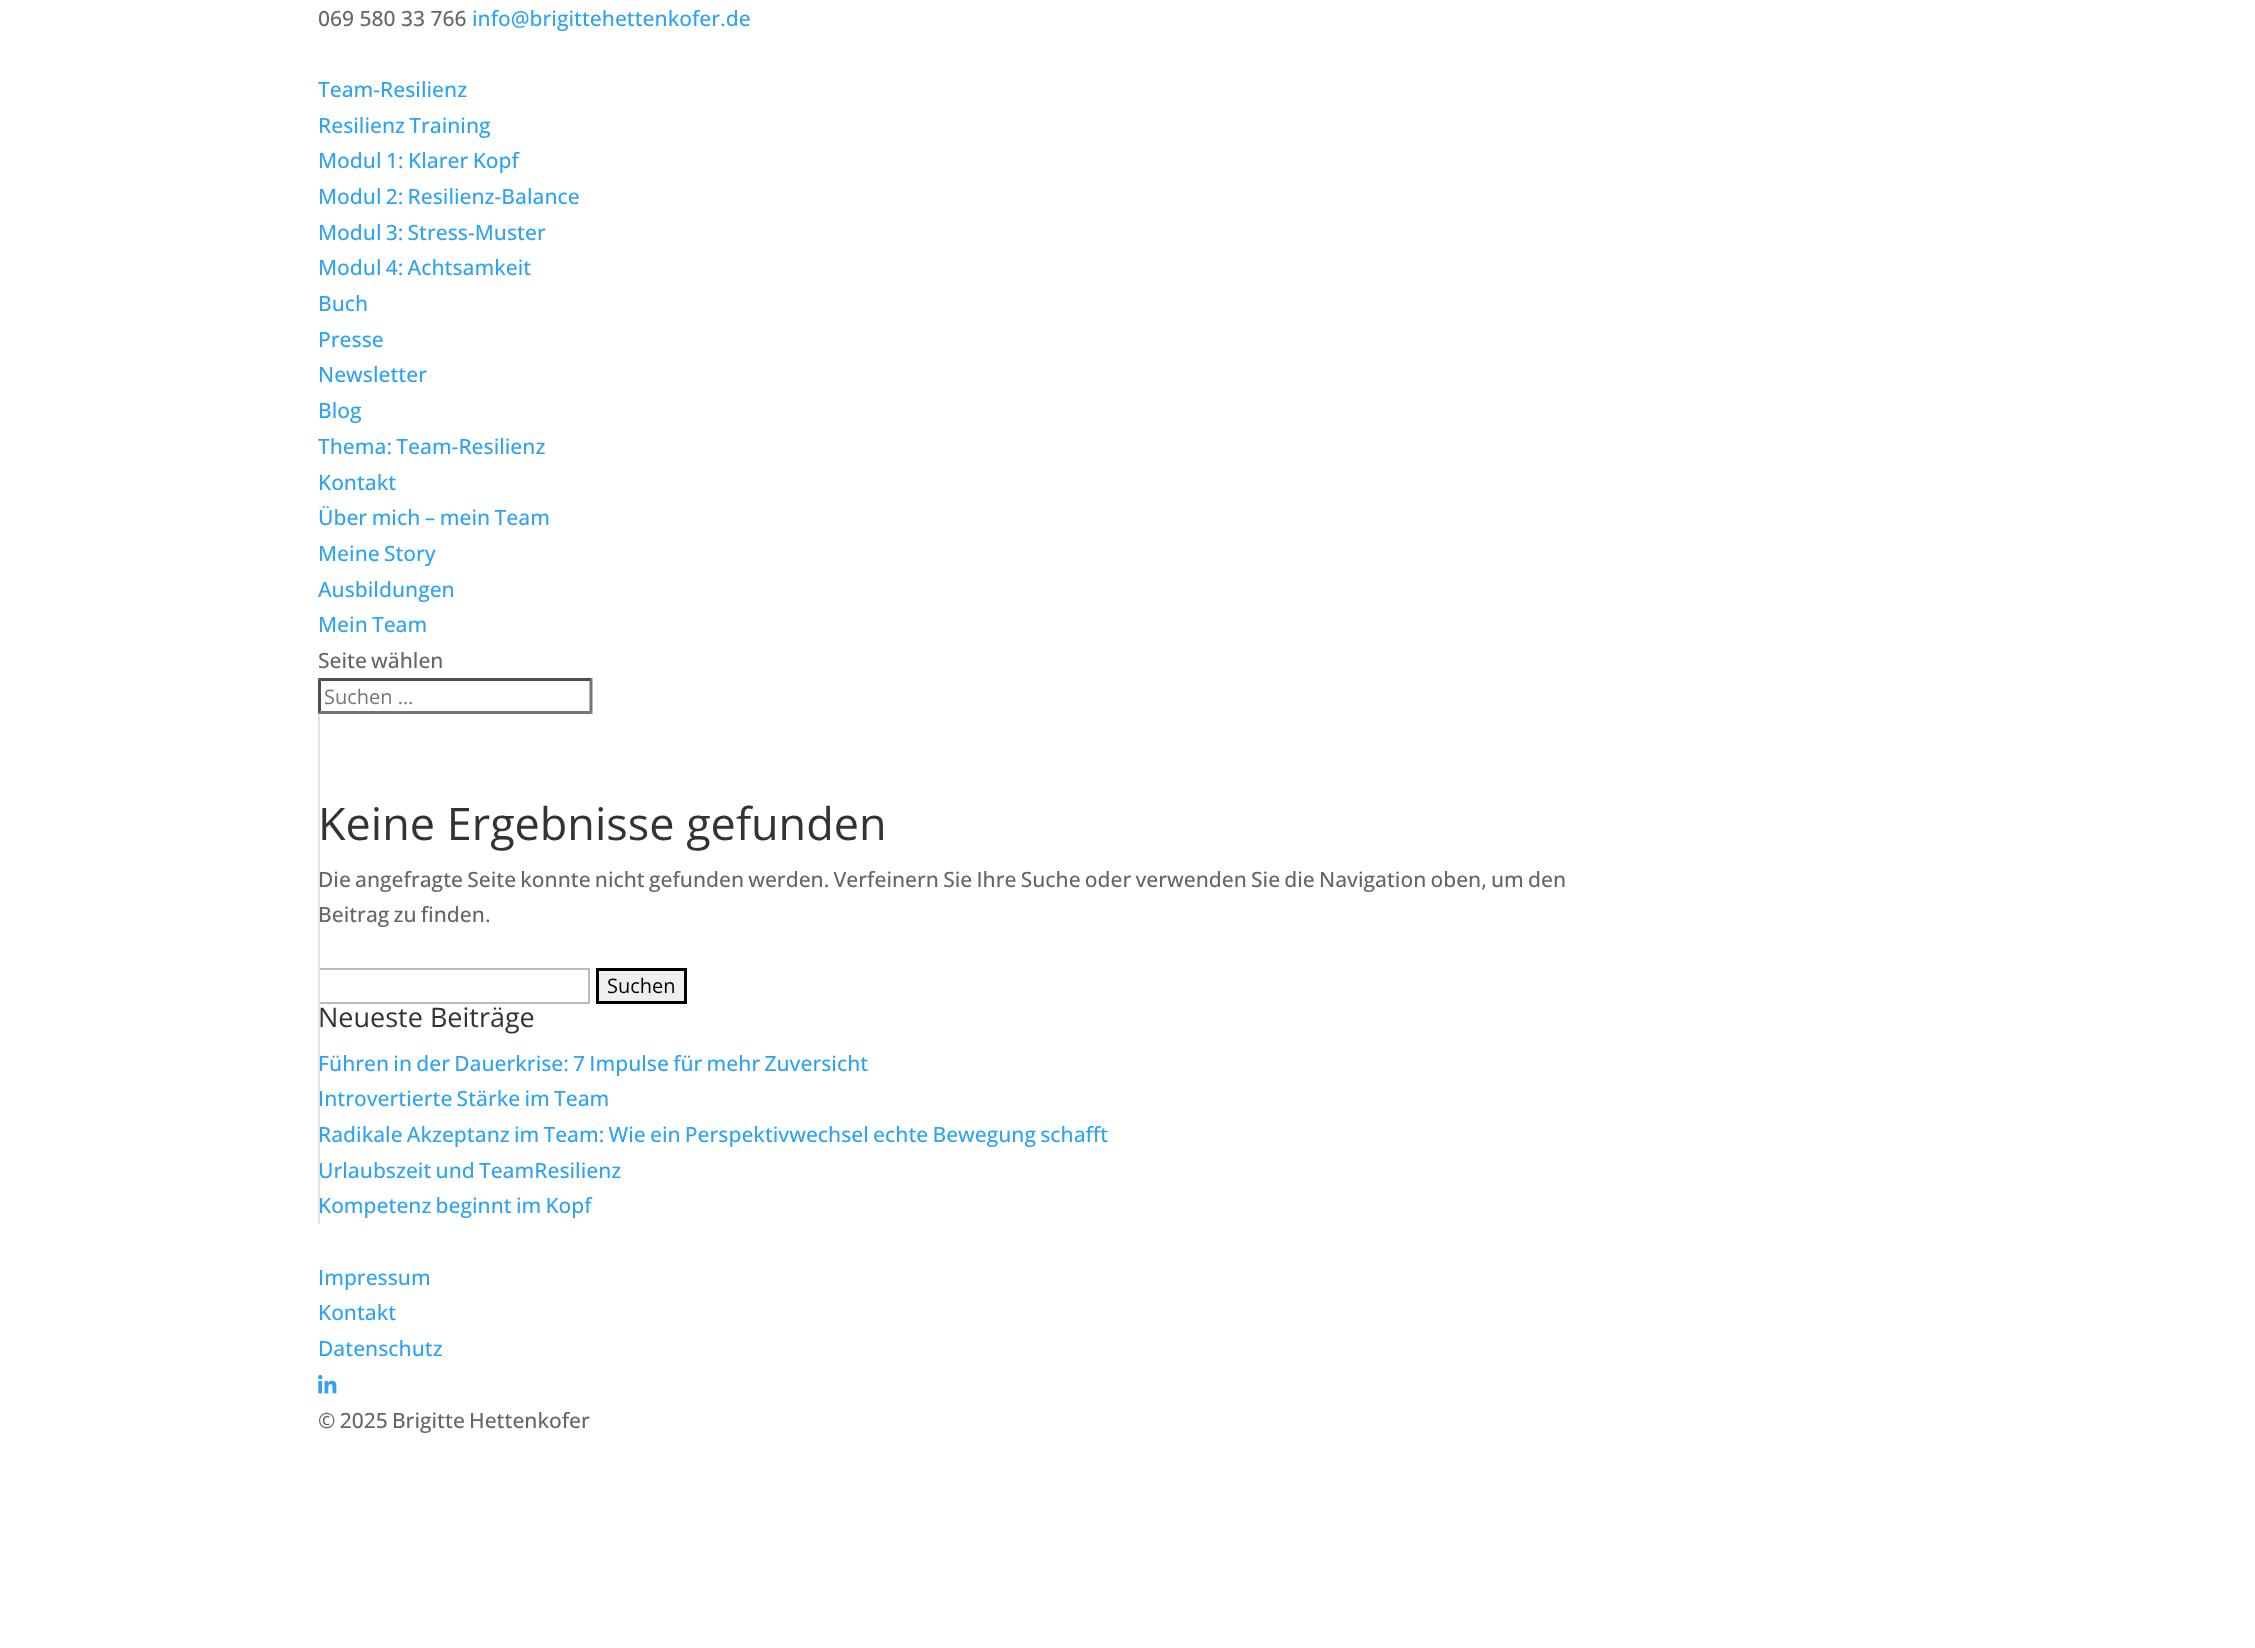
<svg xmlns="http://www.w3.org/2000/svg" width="2255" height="1648">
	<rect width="100%" height="100%" fill="#FFFFFF" />
	<text x="318" y="26" font-family="Open Sans" font-size="21" font-weight="500" fill="#666666">069 580 33 766</text>
	<g font-family="Open Sans" font-size="21" font-weight="500" fill="#2EA3F2">
		<text x="472" y="26">info@brigittehettenkofer.de</text>
		<text x="318" y="97">Team-Resilienz</text>
		<text x="318" y="133" word-spacing="-1.25">Resilienz Training</text>
		<text x="318" y="168" word-spacing="-1">Modul 1: Klarer Kopf</text>
		<text x="318" y="204" word-spacing="-1.25">Modul 2: Resilienz-Balance</text>
		<text x="318" y="240" word-spacing="-1.25">Modul 3: Stress-Muster</text>
		<text x="318" y="275" word-spacing="-1.25">Modul 4: Achtsamkeit</text>
		<text x="318" y="311">Buch</text>
		<text x="318" y="347">Presse</text>
		<text x="318" y="382">Newsletter</text>
		<text x="318" y="418">Blog</text>
		<text x="318" y="454" word-spacing="-1.25">Thema: Team-Resilienz</text>
		<text x="318" y="490">Kontakt</text>
		<text x="318" y="525" word-spacing="-1">Über mich – mein Team</text>
		<text x="318" y="561" word-spacing="-1.25">Meine Story</text>
		<text x="318" y="597">Ausbildungen</text>
		<text x="318" y="632" word-spacing="-1.25">Mein Team</text>
	</g>
	<text x="318" y="668" word-spacing="-1.25" font-family="Open Sans" font-size="21" font-weight="500" fill="#666666">Seite wählen</text>
	<path d="M318 678H592L590 681H321Z" fill="#4F4F4F" />
	<path d="M592.5 678V714L589.5 711V681Z" fill="#767676" />
	<path d="M592 714H318L321 711H590Z" fill="#767676" />
	<path d="M318 714V678L321 681V711Z" fill="#4F4F4F" />
	<text x="324" y="704" font-family="Open Sans" font-size="20" fill="#757575">Suchen …</text>
	<rect x="319" y="969" width="270" height="34" fill="none" stroke="#BBBBBB" stroke-width="2" />
	<text x="318" y="1178" word-spacing="-1.25" font-family="Open Sans" font-size="21" font-weight="500" fill="#2EA3F2">Urlaubszeit und TeamResilienz</text>
	<rect x="318" y="714" width="2" height="510" fill="#E2E2E2" />
	<text x="318" y="840" font-family="Open Sans" font-size="45" fill="#333333">Keine Ergebnisse gefunden</text>
	<g font-family="Open Sans" font-size="21" font-weight="500" fill="#666666">
		<text x="318" y="887" word-spacing="-1.25">Die angefragte Seite konnte nicht gefunden werden. Verfeinern Sie Ihre Suche oder verwenden Sie die Navigation oben, um den</text>
		<text x="318" y="922" word-spacing="-1.25">Beitrag zu finden.</text>
	</g>
	<rect x="597.5" y="969.5" width="88" height="33" fill="#EFEFEF" stroke="#000000" stroke-width="3" />
	<text x="607" y="993" font-family="Open Sans" font-size="20" fill="#000000">Suchen</text>
	<text x="318" y="1027" font-family="Open Sans" font-size="27" fill="#333333">Neueste Beiträge</text>
	<g font-family="Open Sans" font-size="21" font-weight="500" fill="#2EA3F2">
		<text x="318" y="1071" word-spacing="-1.25">Führen in der Dauerkrise: 7 Impulse für mehr Zuversicht</text>
		<text x="318" y="1106" word-spacing="-1.25">Introvertierte Stärke im Team</text>
		<text x="318" y="1142" word-spacing="-1.25">Radikale Akzeptanz im Team: Wie ein Perspektivwechsel echte Bewegung schafft</text>
		<text x="318" y="1213" word-spacing="-1.25">Kompetenz beginnt im Kopf</text>
		<text x="318" y="1285">Impressum</text>
		<text x="318" y="1320">Kontakt</text>
		<text x="318" y="1356">Datenschutz</text>
	</g>
	<image x="318" y="1375" width="19" height="19" href="assets/img1.png" />
	<text x="318" y="1428" word-spacing="-1.25" font-family="Open Sans" font-size="21" font-weight="500" fill="#666666">© 2025 Brigitte Hettenkofer</text>
</svg>
